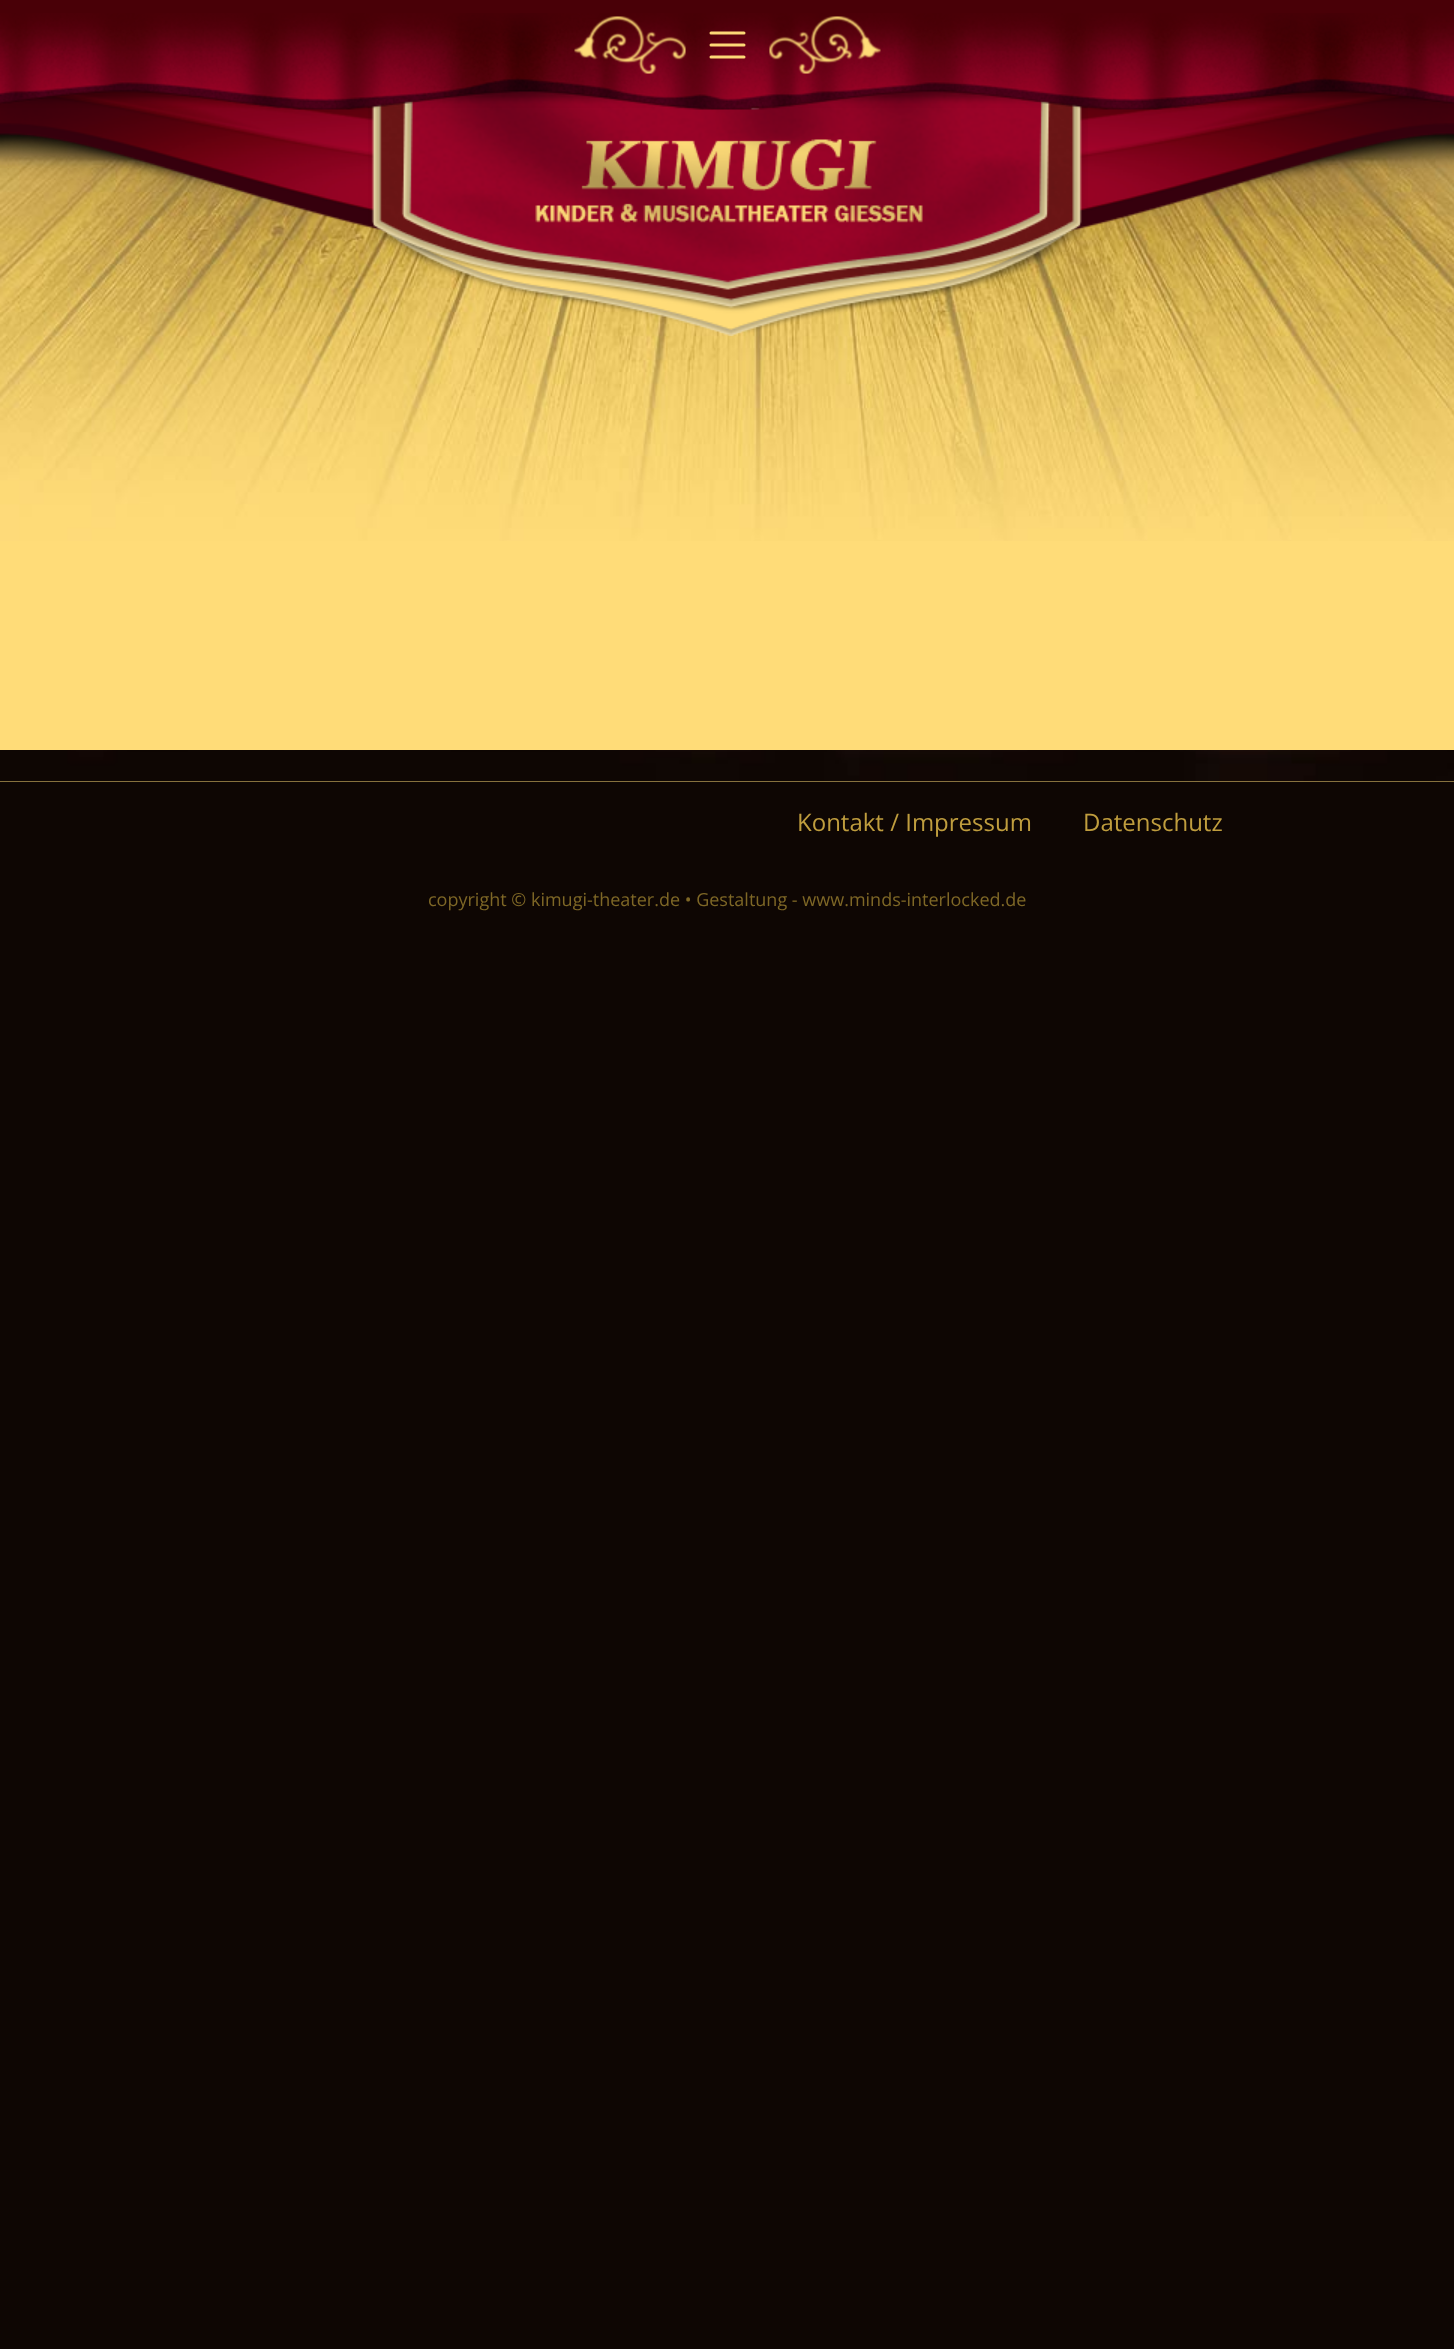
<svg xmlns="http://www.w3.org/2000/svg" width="1454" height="2349">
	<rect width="100%" height="100%" fill="#0E0603" />
	<rect x="0" y="0" width="1454" height="13" fill="#490007" />
	<image x="0" y="133" width="1454" height="408" href="assets/img5.png" />
	<image x="0" y="89" width="1454" height="144" href="assets/img6.png" />
	<image x="368" y="89" width="720" height="247" href="assets/img7.png" />
	<image x="0" y="13" width="1454" height="97" href="assets/img1.png" />
	<image x="574" y="16" width="112" height="58" href="assets/img2.png" />
	<path d="M711 33H744M711 45H744M711 57H744" fill="none" stroke="#FCD977" stroke-width="3" stroke-linecap="round" />
	<image x="769" y="16" width="112" height="58" href="assets/img3.png" />
	<rect x="0" y="781" width="1454" height="1" fill="#FFDC78" />
	<image x="0" y="750" width="1454" height="32" href="assets/img4.png" />
	<rect x="0" y="541" width="1454" height="209" fill="#FFDC78" />
	<g font-family="Open Sans" font-size="24" fill="#BF9D3E">
		<text x="797" y="831">Kontakt / Impressum</text>
		<text x="1083" y="831">Datenschutz</text>
	</g>
	<text x="428" y="906" font-family="Open Sans" font-size="18" fill="#7E6726">copyright © kimugi-theater.de • Gestaltung - www.minds-interlocked.de</text>
</svg>
